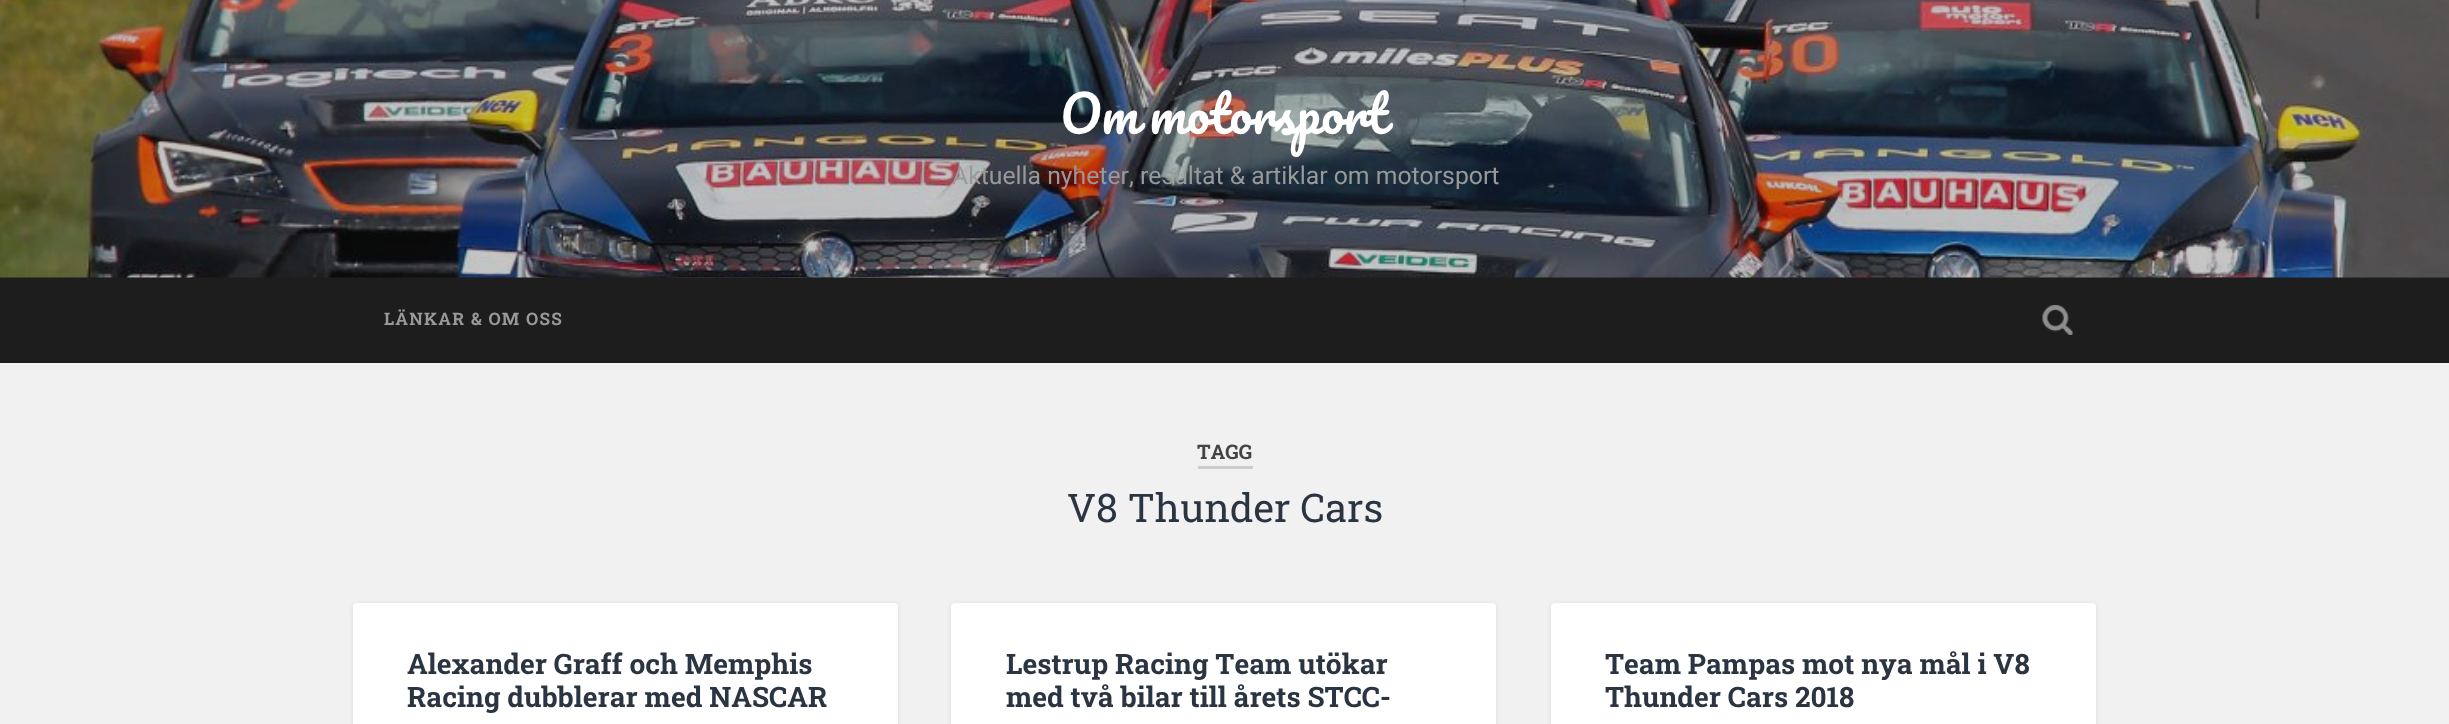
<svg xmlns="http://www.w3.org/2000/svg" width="2449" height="724">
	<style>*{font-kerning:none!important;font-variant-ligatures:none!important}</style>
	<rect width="100%" height="100%" fill="#F1F1F1" />
	<rect x="0" y="277" width="2449" height="86" fill="#1D1D1D" />
	<image x="0" y="0" width="2449" height="278" href="assets/img1.png" />
	<text x="1060" y="134" word-spacing="-3" font-family="Pacifico" font-size="50.5" fill="#FFFFFF">Om motorsport</text>
	<text x="952" y="184" font-family="Roboto" font-size="24.75" fill="#999999">Aktuella nyheter, resultat &amp; artiklar om motorsport</text>
	<text x="384" y="325" font-family="Roboto Slab" font-size="17.25" font-weight="700" letter-spacing="1.25" fill="#999999">LÄNKAR &amp; OM OSS</text>
	<image x="2042" y="305" width="31" height="30" href="assets/img2.png" />
	<rect x="1198" y="466" width="55" height="3" fill="#CCCCCC" />
	<text x="1197" y="459" font-family="Roboto Slab" font-size="20" font-weight="700" fill="#444444">TAGG</text>
	<text x="1067" y="522" font-family="Roboto Slab" font-size="39.5" fill="#2B3542">V8 Thunder Cars</text>
	<rect x="353" y="604" width="545" height="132" rx="4" fill="#000000" fill-opacity="0.1" filter="blur(2.5px)" />
	<rect x="353" y="603" width="545" height="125" rx="4" fill="#FFFFFF" />
	<g font-family="Roboto Slab" font-size="28.1" font-weight="700" fill="#2B3542">
		<text x="407" y="674">Alexander Graff och Memphis</text>
		<text x="407" y="707">Racing dubblerar med NASCAR</text>
	</g>
	<rect x="951" y="604" width="545" height="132" rx="4" fill="#000000" fill-opacity="0.1" filter="blur(2.5px)" />
	<rect x="951" y="603" width="545" height="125" rx="4" fill="#FFFFFF" />
	<g font-family="Roboto Slab" font-size="28.1" font-weight="700" fill="#2B3542">
		<text x="1006" y="674">Lestrup Racing Team utökar</text>
		<text x="1006" y="707">med två bilar till årets STCC-</text>
	</g>
	<rect x="1551" y="604" width="545" height="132" rx="4" fill="#000000" fill-opacity="0.1" filter="blur(2.5px)" />
	<rect x="1551" y="603" width="545" height="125" rx="4" fill="#FFFFFF" />
	<g font-family="Roboto Slab" font-size="28.1" font-weight="700" fill="#2B3542">
		<text x="1605" y="674">Team Pampas mot nya mål i V8</text>
		<text x="1605" y="707">Thunder Cars 2018</text>
	</g>
</svg>
